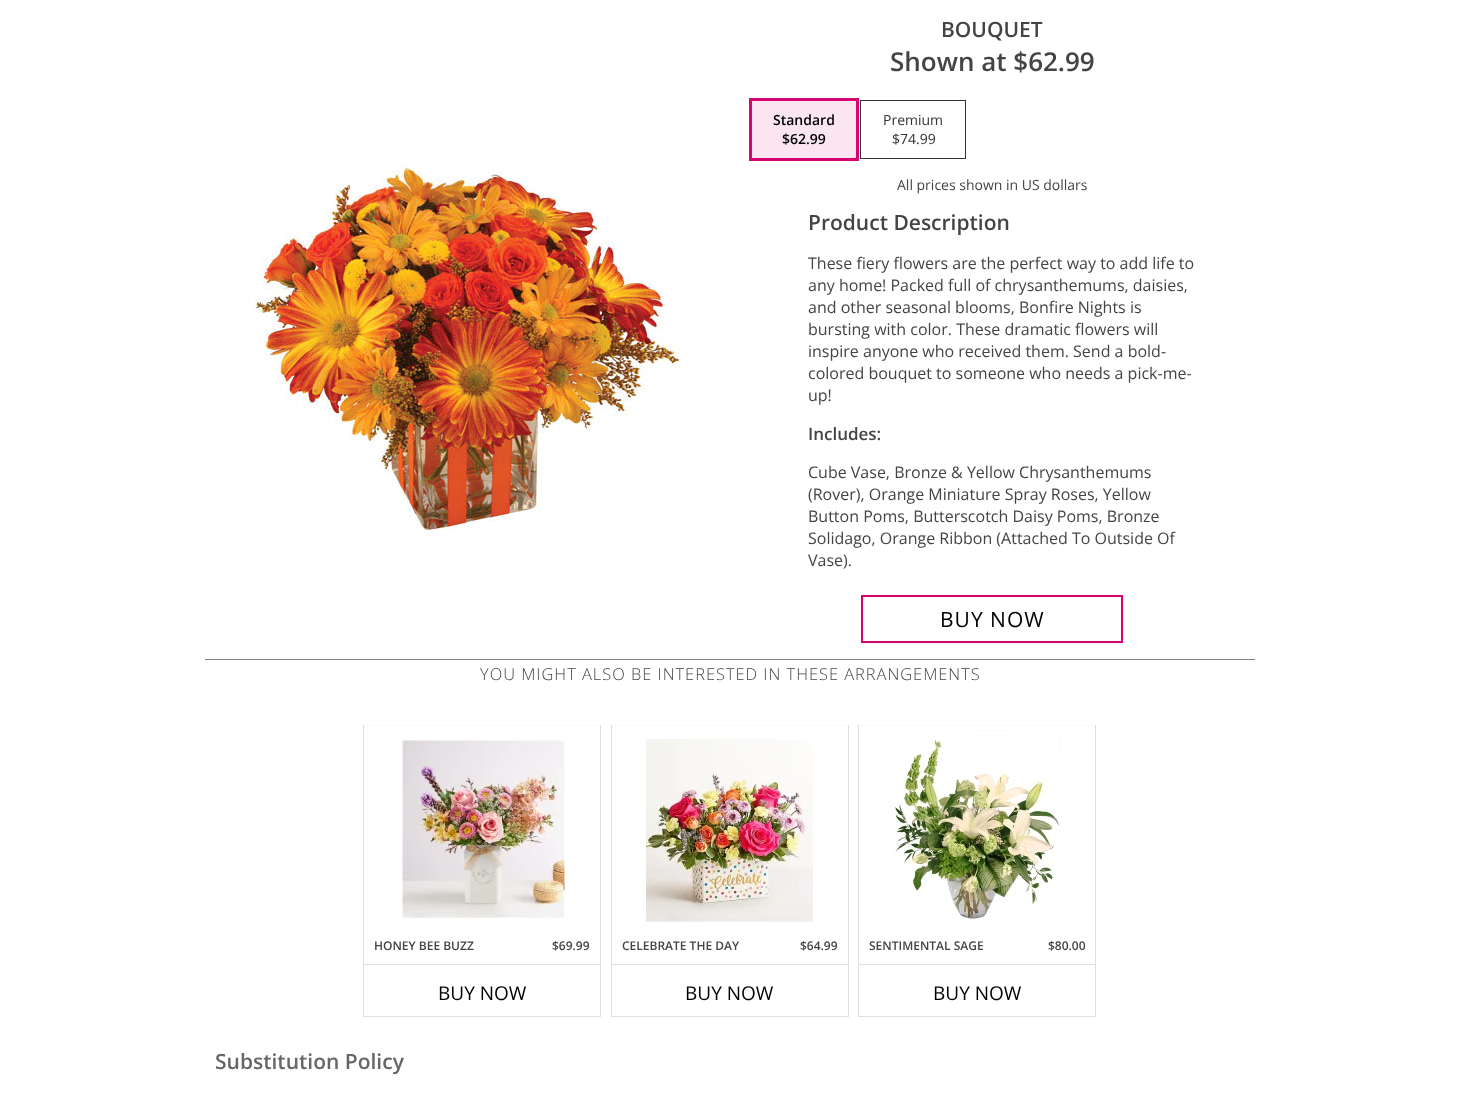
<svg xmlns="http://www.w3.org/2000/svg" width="1459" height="1098">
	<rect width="100%" height="100%" fill="#FFFFFF" />
	<image x="255" y="161" width="424" height="376" href="assets/img1.png" />
	<text x="941" y="37" font-family="Open Sans" font-size="21" font-weight="600" fill="#444444">BOUQUET</text>
	<text x="890" y="71" font-family="Open Sans" font-size="26" font-weight="600" fill="#444444">Shown at $62.99</text>
	<rect x="750.5" y="99.5" width="107" height="60" fill="none" stroke="#D80371" stroke-width="3" />
	<rect x="752" y="101" width="104" height="57" fill="#FBE5F0" />
	<g font-family="Open Sans" font-size="14" font-weight="600" fill="#000000">
		<text x="773" y="125">Standard</text>
		<text x="782" y="144">$62.99</text>
	</g>
	<rect x="860.5" y="100.5" width="105" height="58" fill="none" stroke="#333333" />
	<g font-family="Open Sans" font-size="14" fill="#333333">
		<text x="883" y="125">Premium</text>
		<text x="892" y="144">$74.99</text>
	</g>
	<text x="897" y="190" font-family="Open Sans" font-size="14" fill="#444444">All prices shown in US dollars</text>
	<text x="808" y="230" font-family="Open Sans" font-size="21" font-weight="600" fill="#444444">Product Description</text>
	<g font-family="Open Sans" font-size="16" fill="#444444">
		<text x="808" y="269">These fiery flowers are the perfect way to add life to</text>
		<text x="808" y="291">any home! Packed full of chrysanthemums, daisies,</text>
		<text x="808" y="313">and other seasonal blooms, Bonfire Nights is</text>
		<text x="808" y="335">bursting with color. These dramatic flowers will</text>
		<text x="808" y="357">inspire anyone who received them. Send a bold-</text>
		<text x="808" y="379">colored bouquet to someone who needs a pick-me-</text>
		<text x="808" y="401">up!</text>
	</g>
	<text x="808" y="440" font-family="Open Sans" font-size="17" font-weight="600" fill="#444444">Includes:</text>
	<g font-family="Open Sans" font-size="16" fill="#444444">
		<text x="808" y="478">Cube Vase, Bronze &amp; Yellow Chrysanthemums</text>
		<text x="808" y="500">(Rover), Orange Miniature Spray Roses, Yellow</text>
		<text x="808" y="522">Button Poms, Butterscotch Daisy Poms, Bronze</text>
		<text x="808" y="544">Solidago, Orange Ribbon (Attached To Outside Of</text>
		<text x="808" y="566">Vase).</text>
	</g>
	<rect x="862" y="596" width="260" height="46" fill="none" stroke="#D80371" stroke-width="2" />
	<text x="940" y="627" font-family="Open Sans" font-size="21" letter-spacing="1" fill="#000000">BUY NOW</text>
	<rect x="205" y="659" width="1050" height="1" fill="#808080" />
	<text x="480" y="680" font-family="Open Sans" font-size="16.4" font-weight="300" letter-spacing="1" fill="#444444">YOU MIGHT ALSO BE INTERESTED IN THESE ARRANGEMENTS</text>
	<rect x="363" y="725" width="238" height="1" fill="#F9F9F9" />
	<rect x="600" y="725" width="1" height="292" fill="#E2DEDD" />
	<rect x="363" y="1016" width="238" height="1" fill="#E2DEDD" />
	<rect x="363" y="725" width="1" height="292" fill="#E2DEDD" />
	<image x="402" y="739" width="163" height="179" href="assets/img2.png" />
	<g font-family="Open Sans" font-size="12" font-weight="600" fill="#444444">
		<text x="374" y="950">HONEY BEE BUZZ</text>
		<text x="552" y="950">$69.99</text>
	</g>
	<rect x="364" y="964" width="236" height="1" fill="#E2DEDD" />
	<text x="438" y="1000" font-family="Open Sans" font-size="19" fill="#000000">BUY NOW</text>
	<rect x="611" y="725" width="238" height="1" fill="#F9F9F9" />
	<rect x="848" y="725" width="1" height="292" fill="#E2DEDD" />
	<rect x="611" y="1016" width="238" height="1" fill="#E2DEDD" />
	<rect x="611" y="725" width="1" height="292" fill="#E2DEDD" />
	<image x="646" y="739" width="167" height="183" href="assets/img3.png" />
	<g font-family="Open Sans" font-size="12" font-weight="600" fill="#444444">
		<text x="622" y="950">CELEBRATE THE DAY</text>
		<text x="800" y="950">$64.99</text>
	</g>
	<rect x="612" y="964" width="236" height="1" fill="#E2DEDD" />
	<text x="685" y="1000" font-family="Open Sans" font-size="19" fill="#000000">BUY NOW</text>
	<rect x="858" y="725" width="238" height="1" fill="#F9F9F9" />
	<rect x="1095" y="725" width="1" height="292" fill="#E2DEDD" />
	<rect x="858" y="1016" width="238" height="1" fill="#E2DEDD" />
	<rect x="858" y="725" width="1" height="292" fill="#E2DEDD" />
	<image x="894" y="730" width="167" height="192" href="assets/img4.png" />
	<g font-family="Open Sans" font-size="12" font-weight="600" fill="#444444">
		<text x="869" y="950">SENTIMENTAL SAGE</text>
		<text x="1048" y="950">$80.00</text>
	</g>
	<rect x="859" y="964" width="236" height="1" fill="#E2DEDD" />
	<text x="933" y="1000" font-family="Open Sans" font-size="19" fill="#000000">BUY NOW</text>
	<text x="215" y="1069" font-family="Open Sans" font-size="21" font-weight="600" fill="#666666">Substitution Policy</text>
</svg>
